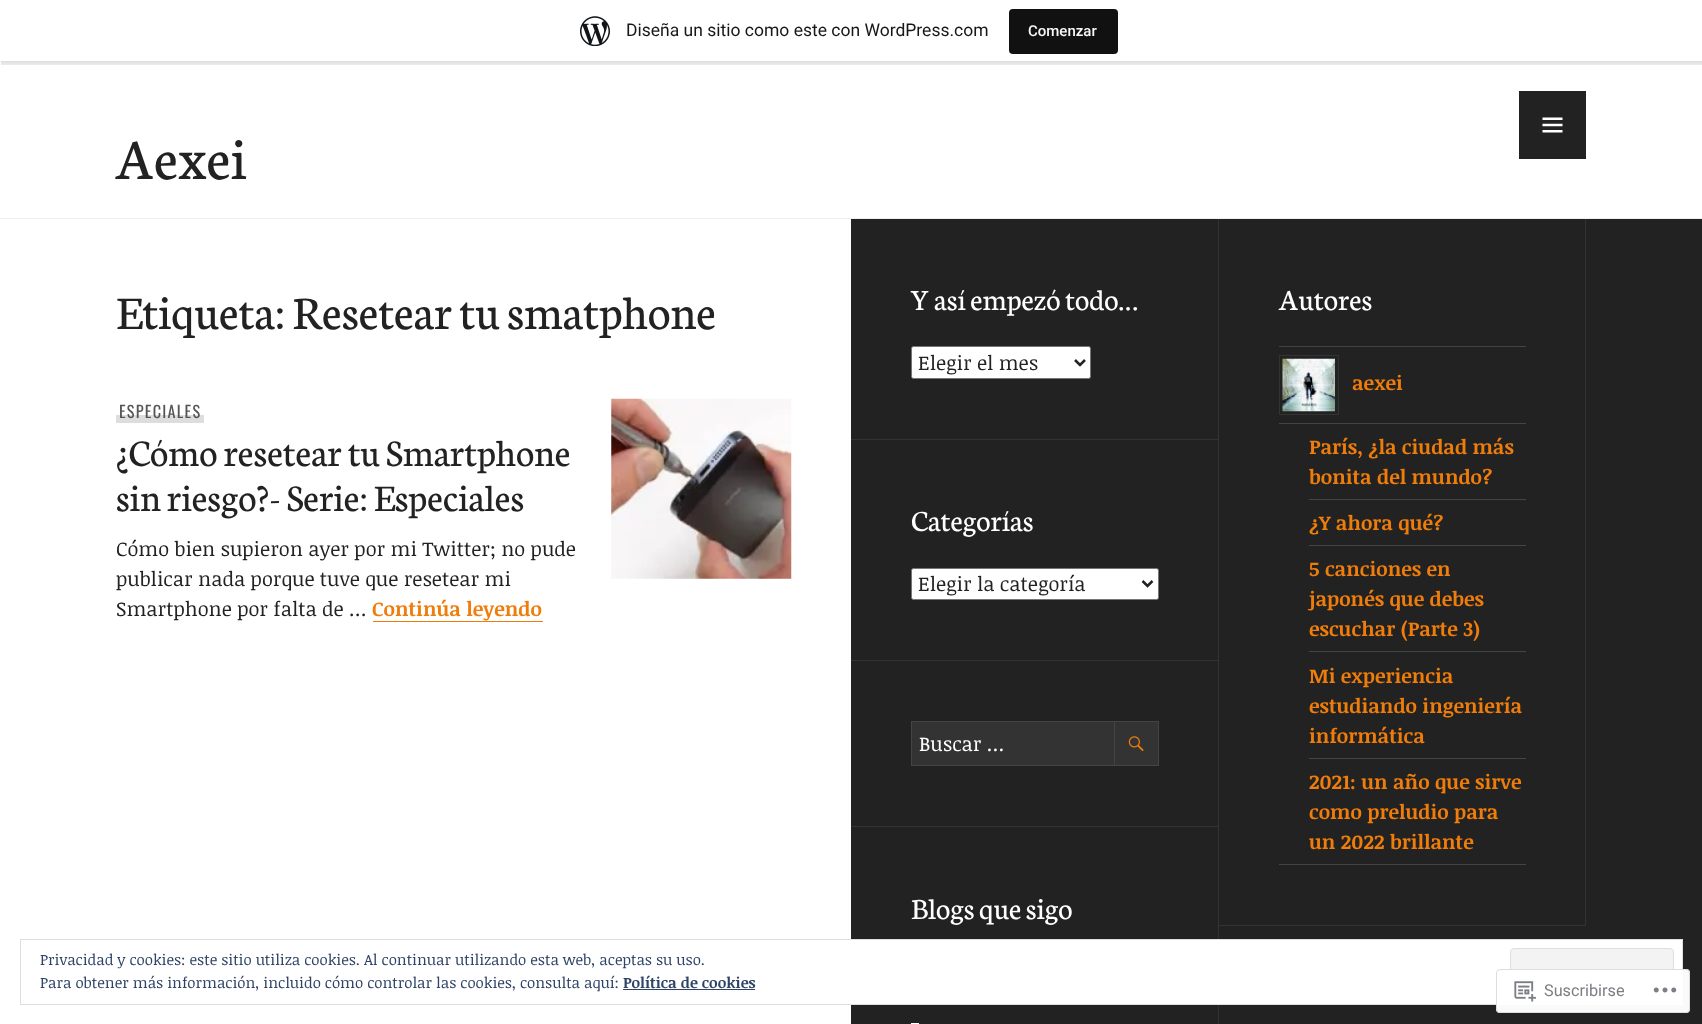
<svg xmlns="http://www.w3.org/2000/svg" width="1702" height="1024">
	<rect width="100%" height="100%" fill="#FFFFFF" />
	<rect x="0" y="1" width="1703" height="62" fill="#000000" fill-opacity="0.05" filter="blur(1px)" />
	<path d="M1 61V65H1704V4H1702V61Z" fill="#000000" fill-opacity="0.08" />
	<rect x="0" y="0" width="1702" height="61" fill="#FFFFFF" />
	<image x="580" y="16" width="30" height="30" href="assets/img1.png" />
	<text x="626" y="36" font-family="Roboto" font-size="17.5" fill="#171717">Diseña un sitio como este con WordPress.com</text>
	<rect x="1009" y="9" width="109" height="45" rx="4" fill="#111111" />
	<text x="1028" y="36" font-family="Roboto" font-size="15" font-weight="500" fill="#F6F7F7">Comenzar</text>
	<rect x="0" y="218" width="1702" height="1" fill="#EEEEEE" />
	<text x="116" y="179" font-family="Neuton" font-size="61" fill="#222222">Aexei</text>
	<rect x="1519" y="91" width="67" height="68" fill="#222222" />
	<image x="1542" y="117" width="21" height="16" href="assets/img2.png" />
	<rect x="851" y="219" width="851" height="805" fill="#222222" />
	<text x="116" y="329" font-family="Neuton" font-size="50" fill="#222222">Etiqueta: Resetear tu smatphone</text>
	<rect x="116" y="415" width="88" height="8" fill="#DDDDDD" />
	<text x="119" y="418" font-family="Oswald" font-size="16.25" letter-spacing="1.25" fill="#555555">ESPECIALES</text>
	<g font-family="Neuton" font-size="40" fill="#222222">
		<text x="116" y="466">¿Cómo resetear tu Smartphone</text>
		<text x="116" y="511">sin riesgo?- Serie: Especiales</text>
	</g>
	<image x="611" y="398" width="181" height="181" href="assets/img3.png" />
	<g font-family="Noticia Text" font-size="20" fill="#222222">
		<text x="116" y="556">Cómo bien supieron ayer por mi Twitter; no pude</text>
		<text x="116" y="586">publicar nada porque tuve que resetear mi</text>
		<text x="116" y="616">Smartphone por falta de …</text>
	</g>
	<text x="372" y="616" font-family="Noticia Text" font-size="20" font-weight="700" fill="#EF7D0B">Continúa leyendo</text>
	<rect x="373" y="621" width="170" height="1" fill="#EF7D0B" />
	<rect x="851" y="439" width="368" height="1" fill="#333333" />
	<text x="911" y="310" font-family="Neuton" font-size="31.25" fill="#FFFFFF">Y así empezó todo…</text>
	<rect x="911.5" y="346.5" width="179" height="32" rx="2" fill="#FFFFFF" stroke="#767676" />
	<path d="M1075 360L1080 365L1085 360" fill="none" stroke="#222222" stroke-width="2.5" />
	<text x="918" y="370" font-family="Noticia Text" font-size="20" fill="#222222">Elegir el mes</text>
	<rect x="851" y="660" width="368" height="1" fill="#333333" />
	<rect x="851" y="826" width="368" height="1" fill="#333333" />
	<rect x="1218" y="219" width="1" height="805" fill="#333333" />
	<text x="911" y="531" font-family="Neuton" font-size="31.25" fill="#FFFFFF">Categorías</text>
	<rect x="911.5" y="568.5" width="247" height="31" rx="2" fill="#FFFFFF" stroke="#767676" />
	<path d="M1142.5 581L1147.5 586L1152.5 581" fill="none" stroke="#222222" stroke-width="2.5" />
	<text x="918" y="591" font-family="Noticia Text" font-size="20" fill="#222222">Elegir la categoría</text>
	<rect x="912" y="722" width="202" height="43" fill="#333333" />
	<rect x="911.5" y="721.5" width="247" height="44" fill="none" stroke="#444444" />
	<rect x="1115" y="722" width="43" height="43" fill="#333333" />
	<image x="1128" y="736" width="16" height="16" href="assets/img4.png" />
	<rect x="1114.5" y="721.5" width="44" height="44" fill="none" stroke="#444444" />
	<text x="919" y="751" font-family="Noticia Text" font-size="20" fill="#FFFFFF">Buscar …</text>
	<text x="911" y="919" font-family="Neuton" font-size="31.25" fill="#FFFFFF">Blogs que sigo</text>
	<rect x="911" y="1023" width="8" height="1" fill="#FFFFFF" />
	<rect x="1219" y="925" width="367" height="1" fill="#333333" />
	<text x="1279" y="310" font-family="Neuton" font-size="31.25" fill="#FFFFFF">Autores</text>
	<rect x="1279" y="864" width="247" height="1" fill="#444444" />
	<rect x="1279" y="346" width="247" height="1" fill="#444444" />
	<rect x="1279.5" y="355.5" width="59" height="59" fill="none" stroke="#333333" />
	<image x="1282" y="358" width="53" height="54" href="assets/img5.png" />
	<text x="1352" y="390" font-family="Noticia Text" font-size="20" font-weight="700" fill="#EF7D0B">aexei</text>
	<rect x="1279" y="423" width="247" height="1" fill="#444444" />
	<g font-family="Noticia Text" font-size="20" font-weight="700" fill="#EF7D0B">
		<text x="1309" y="454">París, ¿la ciudad más</text>
		<text x="1309" y="484">bonita del mundo?</text>
	</g>
	<rect x="1309" y="499" width="217" height="1" fill="#444444" />
	<text x="1309" y="530" font-family="Noticia Text" font-size="20" font-weight="700" fill="#EF7D0B">¿Y ahora qué?</text>
	<rect x="1309" y="545" width="217" height="1" fill="#444444" />
	<g font-family="Noticia Text" font-size="20" font-weight="700" fill="#EF7D0B">
		<text x="1309" y="576">5 canciones en</text>
		<text x="1309" y="606">japonés que debes</text>
		<text x="1309" y="636">escuchar (Parte 3)</text>
	</g>
	<rect x="1309" y="651" width="217" height="1" fill="#444444" />
	<g font-family="Noticia Text" font-size="20" font-weight="700" fill="#EF7D0B">
		<text x="1309" y="683">Mi experiencia</text>
		<text x="1309" y="713">estudiando ingeniería</text>
		<text x="1309" y="743">informática</text>
	</g>
	<rect x="1309" y="758" width="217" height="1" fill="#444444" />
	<g font-family="Noticia Text" font-size="20" font-weight="700" fill="#EF7D0B">
		<text x="1309" y="789">2021: un año que sirve</text>
		<text x="1309" y="819">como preludio para</text>
		<text x="1309" y="849">un 2022 brillante</text>
	</g>
	<rect x="1585" y="219" width="1" height="706" fill="#333333" />
	<rect x="851" y="940" width="831" height="64" fill="#FFFFFF" />
	<rect x="20.5" y="939.5" width="1662" height="65" fill="none" stroke="#DEDEDE" />
	<text x="40" y="965" font-family="Noticia Text" font-size="15" fill="#2E4467">Privacidad y cookies: este sitio utiliza cookies. Al continuar utilizando esta web, aceptas su uso.</text>
	<rect x="1510.5" y="948.5" width="163" height="47" rx="3.5" fill="#F3F3F3" stroke="#DEDEDE" />
	<text x="40" y="988" font-family="Noticia Text" font-size="15" fill="#2E4467">Para obtener más información, incluido cómo controlar las cookies, consulta aquí:</text>
	<text x="623" y="988" font-family="Noticia Text" font-size="15" font-weight="700" fill="#2E4467">Política de cookies</text>
	<rect x="623" y="989" width="132" height="1" fill="#2E4467" />
	<rect x="1496" y="969" width="194" height="44" rx="4" fill="#FFFFFF" fill-opacity="0.98" />
	<rect x="1496.5" y="969.5" width="193" height="43" rx="3.5" fill="none" stroke="#DCDCDE" stroke-opacity="0.98" />
	<image x="1514" y="981" width="22" height="21" href="assets/img6.png" />
	<text x="1544" y="996" font-family="Roboto" font-size="16.25" fill="#7B7F84">Suscribirse</text>
	<image x="1653" y="987" width="24" height="6" href="assets/img7.png" />
</svg>
